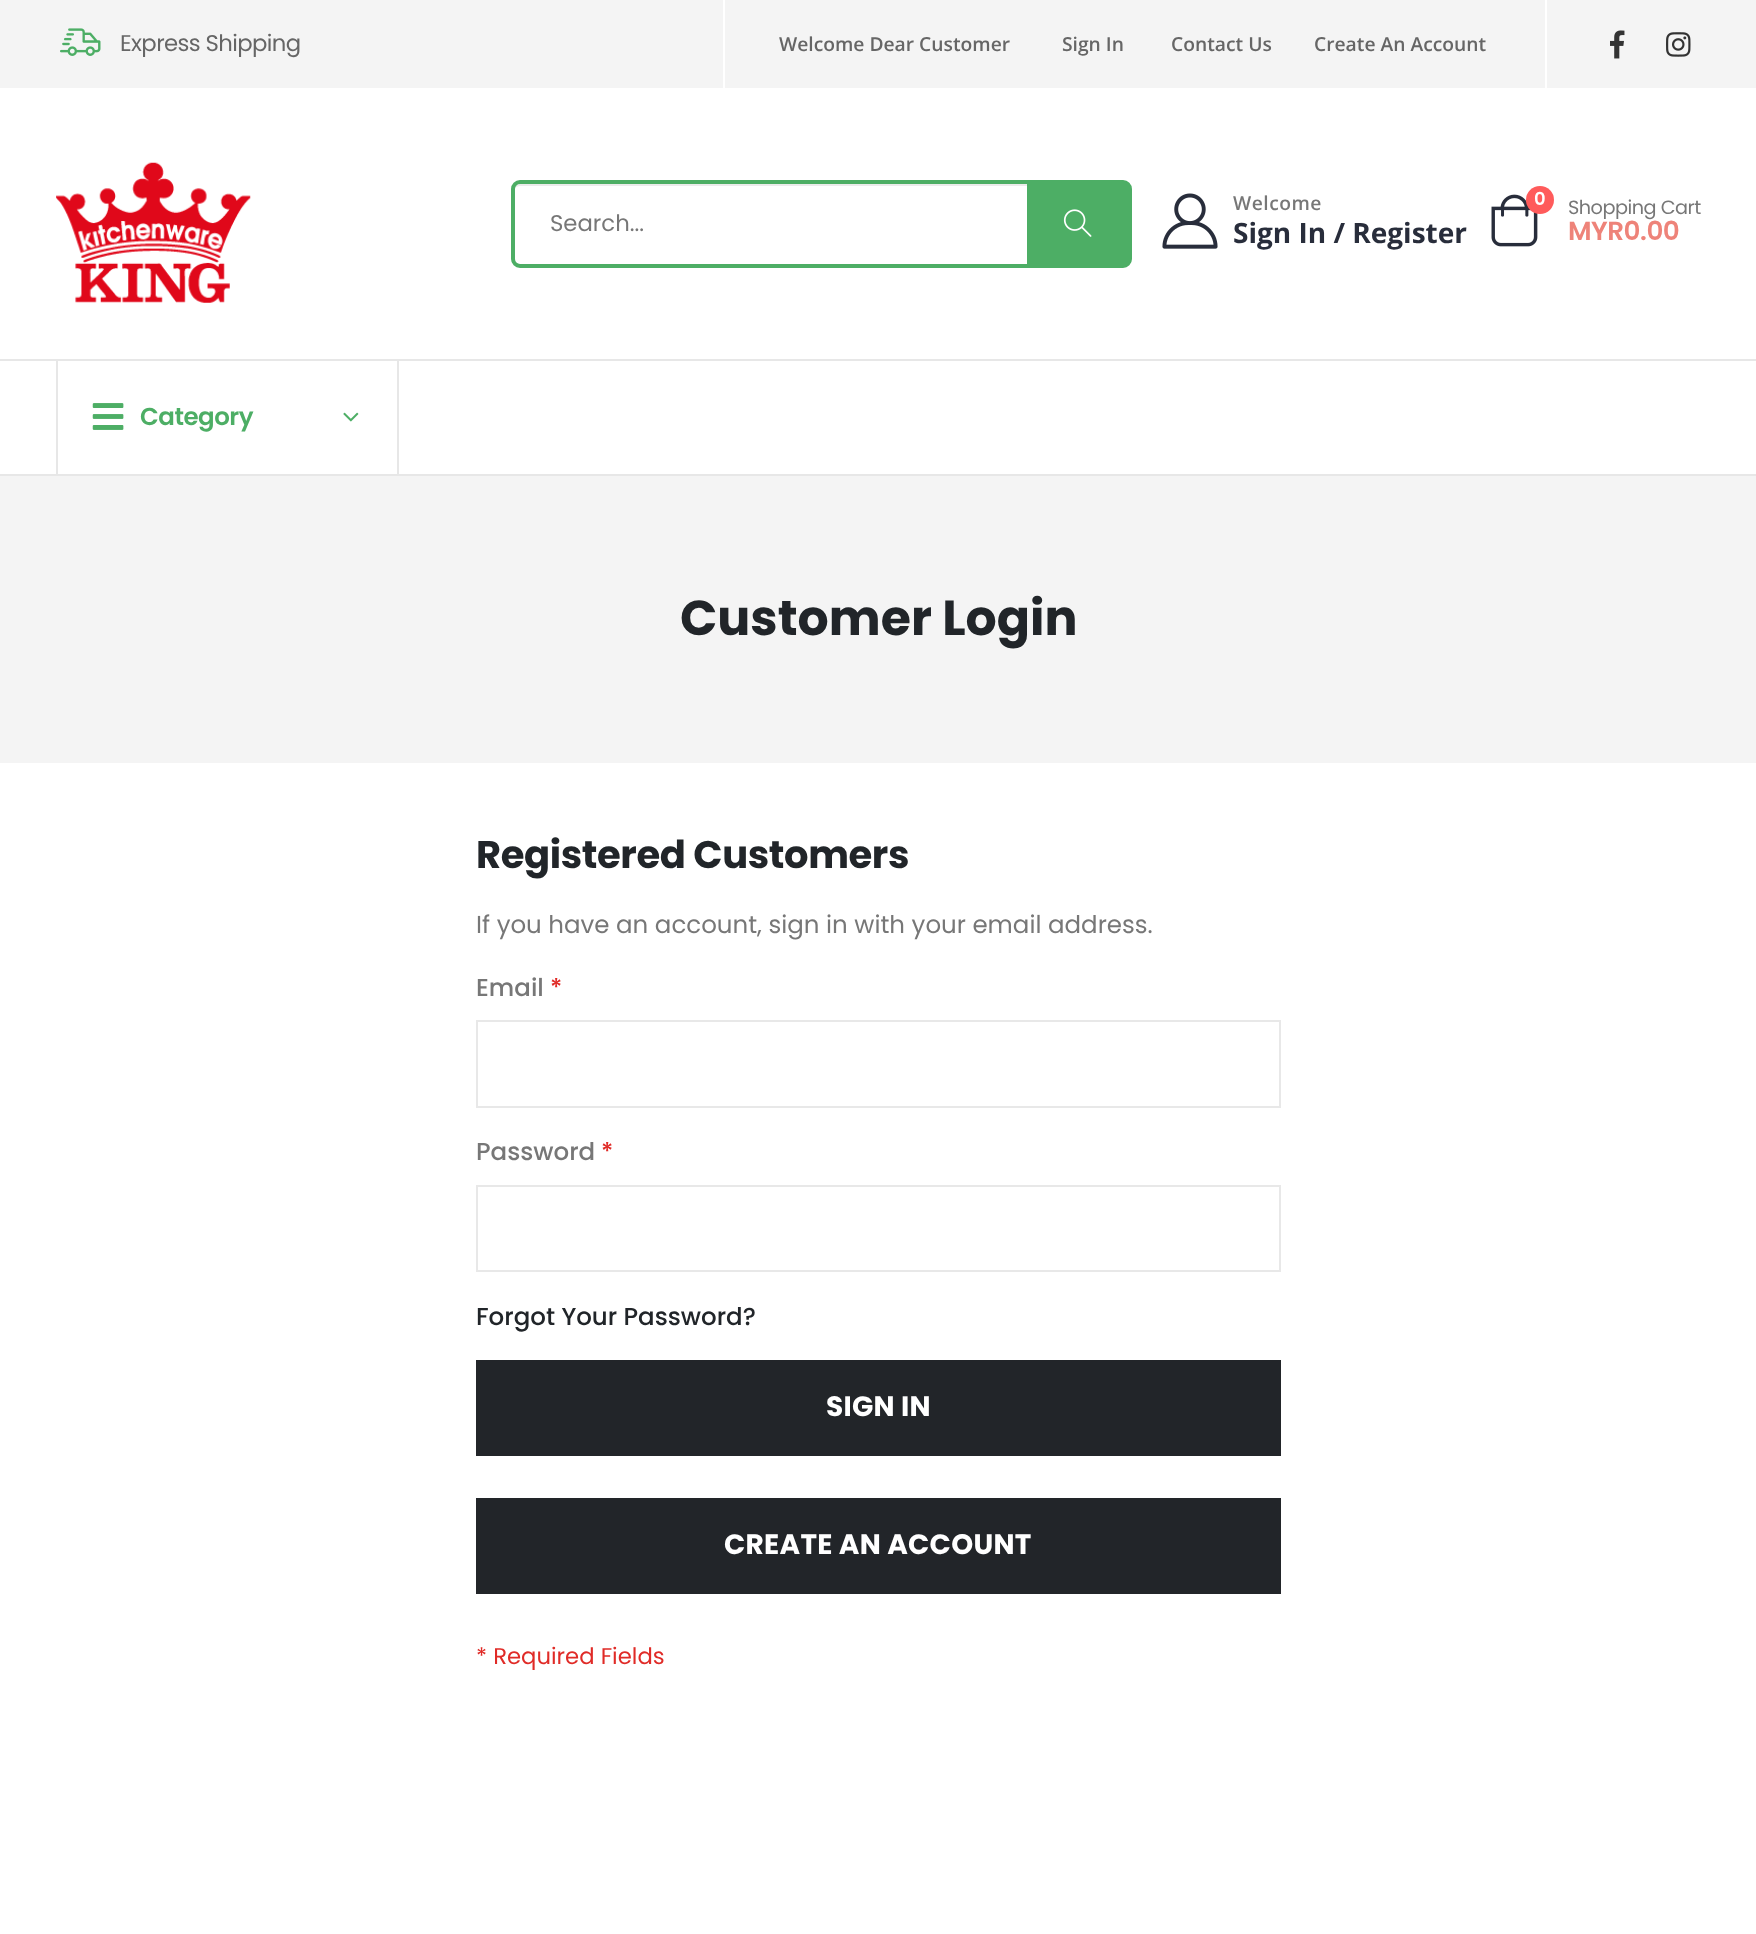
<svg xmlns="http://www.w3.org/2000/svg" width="1756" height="1934">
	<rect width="100%" height="100%" fill="#FFFFFF" />
	<rect x="0" y="0" width="1756" height="88" fill="#F4F4F4" />
	<image x="60" y="28" width="41" height="28" href="assets/img1.png" />
	<text x="120" y="51" font-family="Poppins" font-size="22.75" letter-spacing="-0.6" fill="#666666">Express Shipping</text>
	<rect x="723" y="0" width="2" height="88" fill="#FFFFFF" />
	<g font-family="Open Sans" font-size="19.25" font-weight="600" fill="#666666">
		<text x="779" y="51">Welcome Dear Customer</text>
		<text x="1062" y="51">Sign In</text>
		<text x="1171" y="51">Contact Us</text>
		<text x="1314" y="51">Create An Account</text>
	</g>
	<rect x="1545" y="0" width="2" height="88" fill="#FFFFFF" />
	<image x="1610" y="30" width="15" height="29" href="assets/img2.png" />
	<image x="1666" y="32" width="25" height="25" href="assets/img3.png" />
	<image x="56" y="162" width="195" height="141" href="assets/img4.png" />
	<path d="M520 186H1124C1126 186 1129 188 1129 191C1129 188 1128 184 1124 184H520C518 184 515 186 515 188C516 187 518 186 520 186Z" fill="#EBEBEB" />
	<rect x="513" y="182" width="617" height="84" rx="7" fill="none" stroke="#4DAE65" stroke-width="4" />
	<text x="550" y="231" font-family="Poppins" font-size="22.75" fill="#777777">Search...</text>
	<rect x="1027" y="184" width="101" height="80" fill="#4DAE65" />
	<image x="1063" y="209" width="29" height="28" href="assets/img5.png" />
	<image x="1162" y="193" width="56" height="56" href="assets/img6.png" />
	<text x="1233" y="210" font-family="Open Sans" font-size="19.25" font-weight="600" letter-spacing="0.5" fill="#777777">Welcome</text>
	<text x="1233" y="243" font-family="Open Sans" font-size="28" font-weight="700" fill="#282D3B">Sign In / Register</text>
	<image x="1491" y="194" width="47" height="53" href="assets/img7.png" />
	<circle cx="1540" cy="200" r="14" fill="#FF5B5B" />
	<text x="1534" y="205" font-family="Poppins" font-size="18" font-weight="600" fill="#FFFFFF">0</text>
	<text x="1568" y="214" font-family="Poppins" font-size="19.25" letter-spacing="-0.5" fill="#777777">Shopping Cart</text>
	<text x="1568" y="240" font-family="Poppins" font-size="26.25" font-weight="600" letter-spacing="-0.5" fill="#EE8379">MYR0.00</text>
	<rect x="0" y="359" width="1756" height="2" fill="#E7E7E7" />
	<rect x="0" y="474" width="1756" height="2" fill="#E7E7E7" />
	<rect x="397" y="361" width="2" height="113" fill="#E7E7E7" />
	<rect x="56" y="361" width="2" height="113" fill="#E7E7E7" />
	<image x="92" y="403" width="32" height="27" href="assets/img8.png" />
	<text x="140" y="425" font-family="Poppins" font-size="24.5" font-weight="600" letter-spacing="-0.5" fill="#4DAE65">Category</text>
	<image x="343" y="412" width="16" height="10" href="assets/img9.png" />
	<rect x="0" y="476" width="1756" height="287" fill="#F4F4F4" />
	<text x="680" y="635" font-family="Poppins" font-size="49" font-weight="700" fill="#212529">Customer Login</text>
	<text x="476" y="868" font-family="Poppins" font-size="38.5" font-weight="700" letter-spacing="-0.4" fill="#212529">Registered Customers</text>
	<text x="476" y="933" font-family="Poppins" font-size="24.5" fill="#777777">If you have an account, sign in with your email address.</text>
	<text x="476" y="996" font-family="Poppins" font-size="24.5" font-weight="500" fill="#777777">Email</text>
	<text x="550" y="996" font-family="Poppins" font-size="24.5" font-weight="500" fill="#E02B27">*</text>
	<rect x="477" y="1021" width="803" height="86" fill="none" stroke="#E8E8E8" stroke-width="2" />
	<text x="476" y="1160" font-family="Poppins" font-size="24.5" font-weight="500" fill="#777777">Password</text>
	<text x="601" y="1160" font-family="Poppins" font-size="24.5" font-weight="500" fill="#E02B27">*</text>
	<rect x="477" y="1186" width="803" height="85" fill="none" stroke="#E8E8E8" stroke-width="2" />
	<text x="476" y="1325" font-family="Poppins" font-size="24.5" font-weight="500" fill="#212529">Forgot Your Password?</text>
	<rect x="476" y="1360" width="805" height="96" fill="#222529" />
	<text x="826" y="1416" font-family="Poppins" font-size="28" font-weight="700" letter-spacing="0.25" fill="#FFFFFF">SIGN IN</text>
	<rect x="476" y="1498" width="805" height="96" fill="#222529" />
	<text x="724" y="1554" font-family="Poppins" font-size="28" font-weight="700" letter-spacing="0.25" fill="#FFFFFF">CREATE AN ACCOUNT</text>
	<text x="476" y="1664" font-family="Poppins" font-size="22.75" fill="#E02B27">* Required Fields</text>
</svg>
